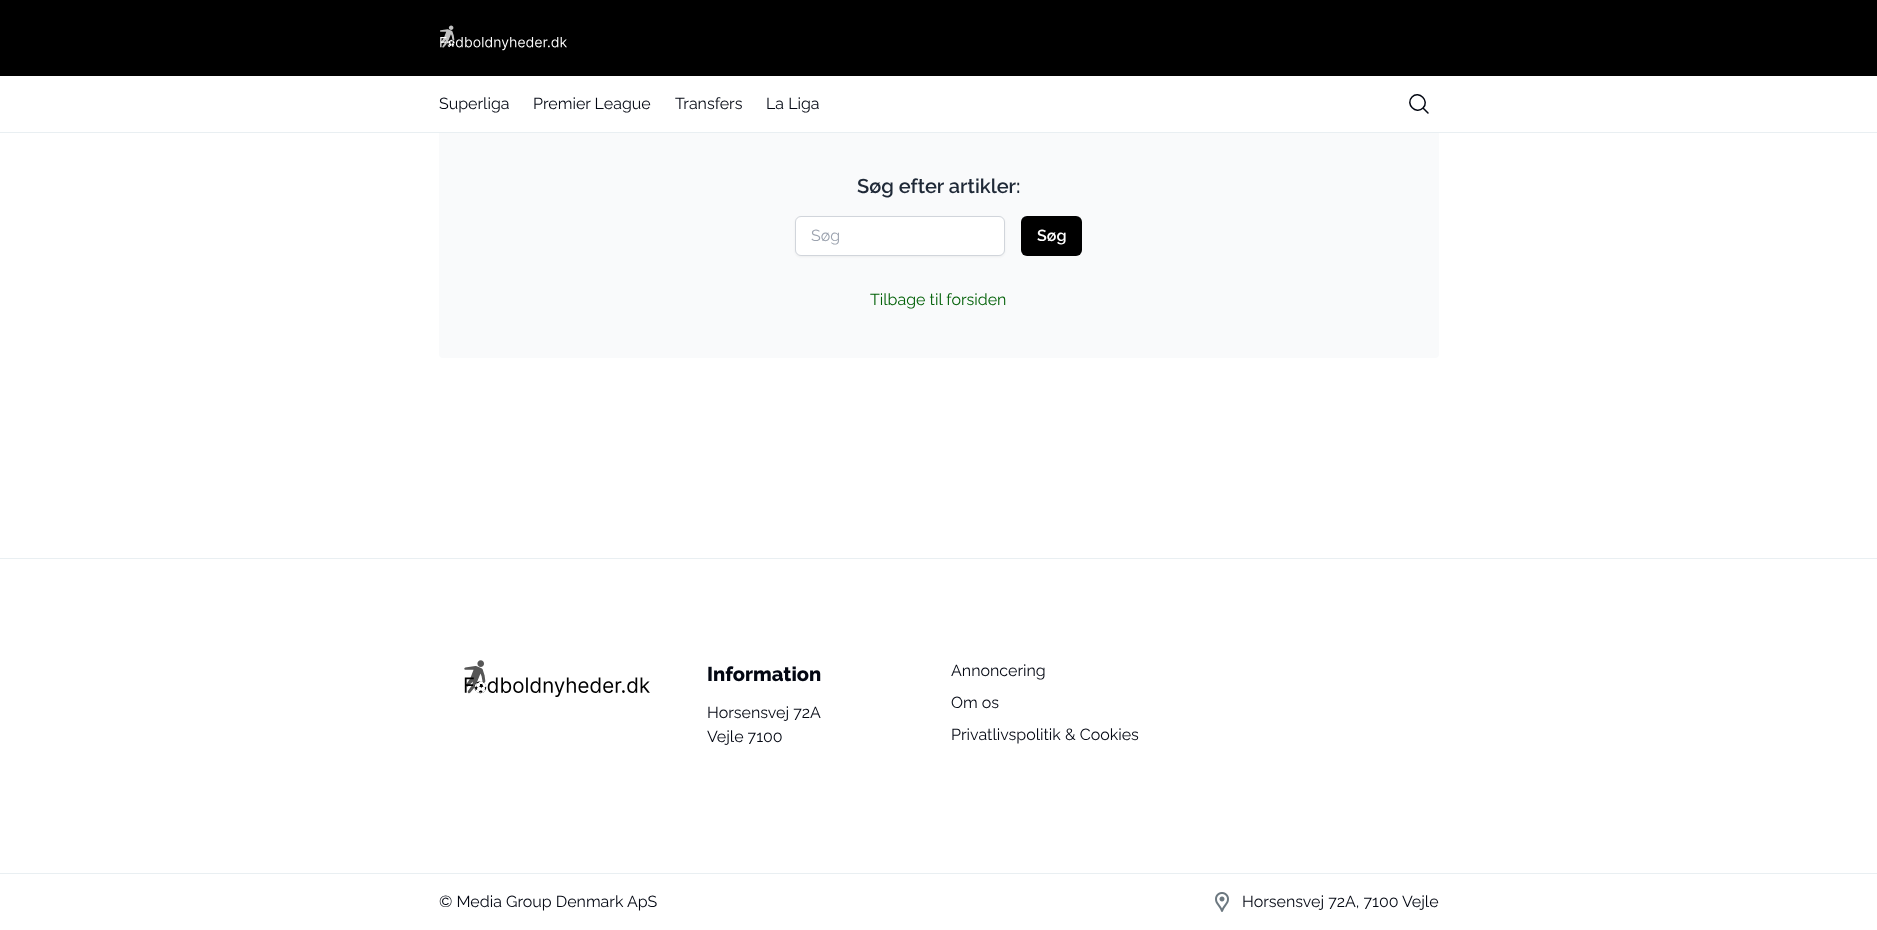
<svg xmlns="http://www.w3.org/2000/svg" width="1877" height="930">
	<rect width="100%" height="100%" fill="#FFFFFF" />
	<rect x="439" y="-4" width="1000" height="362" rx="4" fill="#F9FAFB" />
	<rect x="0" y="0" width="1877" height="76" fill="#000000" />
	<image x="440" y="25" width="127" height="26" href="assets/img1.png" />
	<rect x="439" y="76" width="1000" height="56" fill="#FFFFFF" />
	<rect x="0" y="132" width="1877" height="1" fill="#E9EFF2" />
	<g font-family="'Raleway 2'" font-size="16" font-weight="100" fill="#030712">
		<text x="439" y="109">Superliga</text>
		<text x="533" y="109">Premier League</text>
		<text x="675" y="109">Transfers</text>
		<text x="766" y="109">La Liga</text>
	</g>
	<path d="M1428 113L1423 108M1423 108C1430 101 1419 90 1412 97C1405 104 1416 115 1423 108Z" fill="none" stroke="#030712" stroke-width="1.5" stroke-linecap="round" stroke-linejoin="round" />
	<text x="857" y="193" font-family="Raleway" font-size="20" font-weight="100" fill="#1F2937">Søg efter artikler:</text>
	<rect x="795" y="217" width="210" height="40" rx="6" fill="#000000" fill-opacity="0.05" filter="blur(1px)" />
	<rect x="795.5" y="216.5" width="209" height="39" rx="5.5" fill="#FFFFFF" stroke="#D1D5DB" />
	<text x="811" y="241" font-family="'Raleway 2'" font-size="16" font-weight="100" fill="#9CA3AF">Søg</text>
	<rect x="1021" y="216" width="61" height="40" rx="6" fill="#000000" />
	<text x="1037" y="241" font-family="Raleway" font-size="16" font-weight="100" fill="#FFFFFF">Søg</text>
	<text x="870" y="305" font-family="'Raleway 2'" font-size="16" font-weight="100" fill="#006006">Tilbage til forsiden</text>
	<rect x="0" y="558" width="1877" height="1" fill="#E9EFF2" />
	<image x="464" y="660" width="186" height="37" href="assets/img2.png" />
	<text x="707" y="681" font-family="'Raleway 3'" font-size="20" font-weight="100" fill="#030712">Information</text>
	<g font-family="'Raleway 2'" font-size="16" font-weight="100" fill="#030712">
		<text x="707" y="718">Horsensvej 72A</text>
		<text x="707" y="742">Vejle 7100</text>
		<text x="951" y="676">Annoncering</text>
		<text x="951" y="708">Om os</text>
		<text x="951" y="740">Privatlivspolitik &amp; Cookies</text>
	</g>
	<rect x="0" y="873" width="1877" height="1" fill="#E9EFF2" />
	<text x="439" y="907" font-family="'Raleway 2'" font-size="16" font-weight="100" fill="#030712">© Media Group Denmark ApS</text>
	<image x="1215" y="892" width="14" height="20" href="assets/img3.png" />
	<text x="1242" y="907" font-family="'Raleway 2'" font-size="16" font-weight="100" fill="#030712">Horsensvej 72A, 7100 Vejle</text>
</svg>
